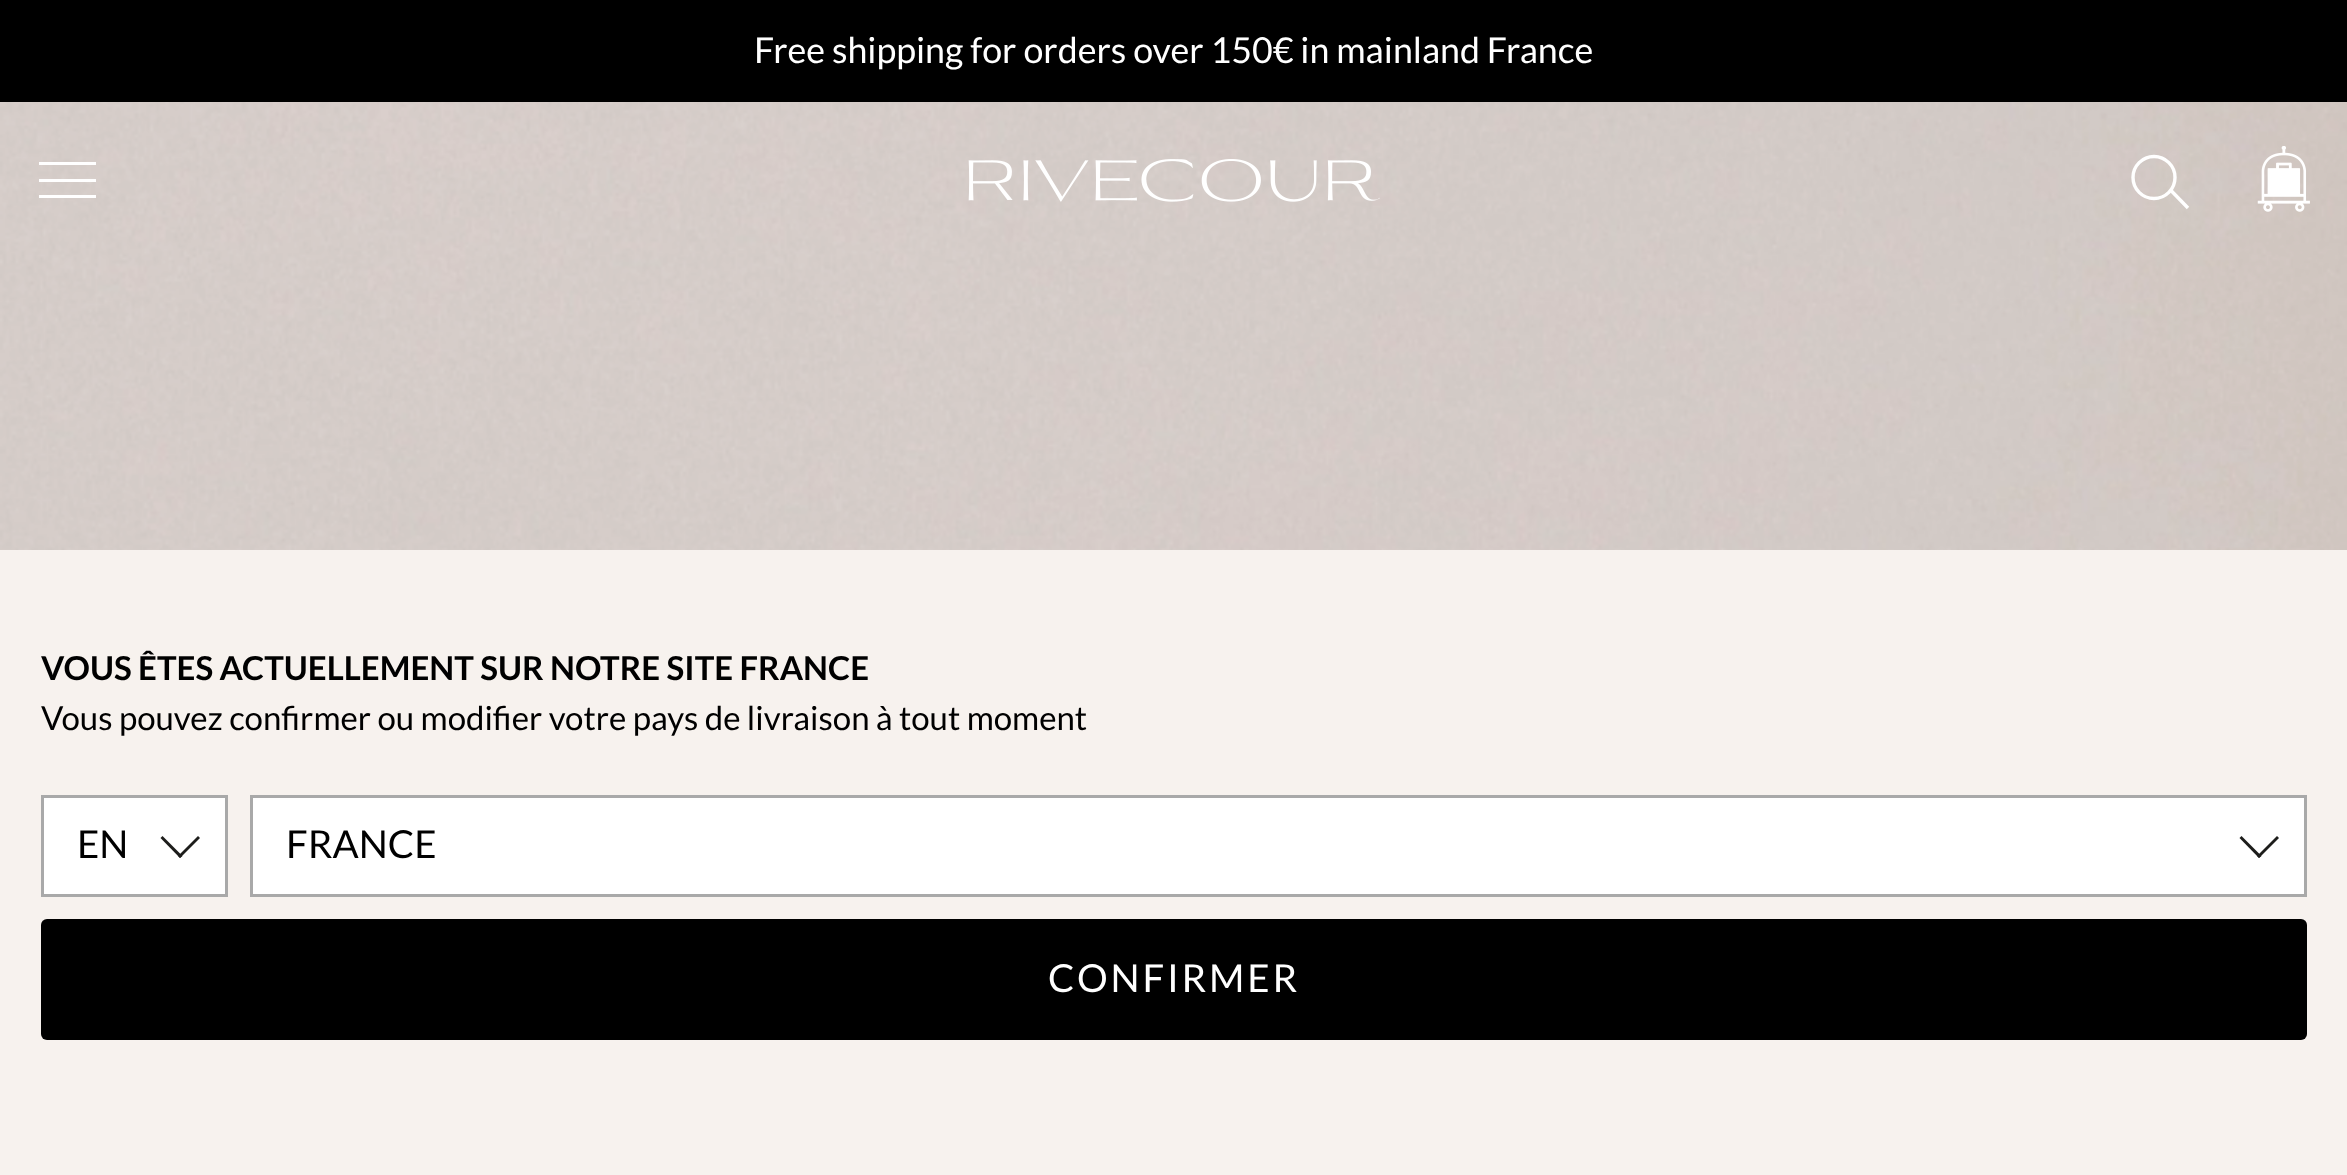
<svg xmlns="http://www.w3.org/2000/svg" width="2347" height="1175">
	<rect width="100%" height="100%" fill="#FFFFFF" />
	<rect x="0" y="0" width="2347" height="102" fill="#000000" />
	<text x="754" y="63" font-family="Lato" font-size="35.75" fill="#FFFFFF">Free shipping for orders over 150€ in mainland France</text>
	<image x="0" y="102" width="2347" height="448" href="assets/img3.png" />
	<rect x="39" y="162" width="57" height="3" fill="#FFFFFF" />
	<rect x="39" y="179" width="57" height="3" fill="#FFFFFF" />
	<rect x="39" y="195" width="57" height="3" fill="#FFFFFF" />
	<image x="968" y="159" width="412" height="43" href="assets/img1.png" />
	<circle cx="2154" cy="177.5" r="21" fill="none" stroke="#FFFFFF" stroke-width="3.4" />
	<path d="M2171 190.5L2188 208" fill="none" stroke="#FFFFFF" stroke-width="3.4" />
	<image x="2257" y="146" width="53" height="66" href="assets/img2.png" />
	<rect x="0" y="550" width="2347" height="625" fill="#F7F2EE" />
	<text x="41" y="680" font-family="Lato" font-size="33" font-weight="700" fill="#000000">VOUS ÊTES ACTUELLEMENT SUR NOTRE SITE FRANCE</text>
	<text x="41" y="730" font-family="Lato" font-size="33" fill="#000000">Vous pouvez confirmer ou modifier votre pays de livraison à tout moment</text>
	<rect x="42.5" y="796.5" width="184" height="99" fill="#FFFFFF" stroke="#A9A9A9" stroke-width="3" />
	<text x="77" y="858" font-family="Lato" font-size="38.5" fill="#000000">EN</text>
	<path d="M178 856L198 836L200 838L180 858Z" fill="#1D1D1B" />
	<path d="M160.5 838L162.5 836L182.5 856L180 858Z" fill="#1D1D1B" />
	<rect x="251.5" y="796.5" width="2054" height="99" fill="#FFFFFF" stroke="#A9A9A9" stroke-width="3" />
	<text x="286" y="858" font-family="Lato" font-size="38.5" fill="#000000">FRANCE</text>
	<path d="M2257 856L2277 836L2279 838L2259 858Z" fill="#1D1D1B" />
	<path d="M2239.5 838L2241.5 836L2261.5 856L2259 858Z" fill="#1D1D1B" />
	<rect x="41" y="919" width="2266" height="121" rx="6" fill="#000000" />
	<text x="1048" y="992" font-family="Lato" font-size="38.5" letter-spacing="2.75" fill="#FFFFFF">CONFIRMER</text>
</svg>
